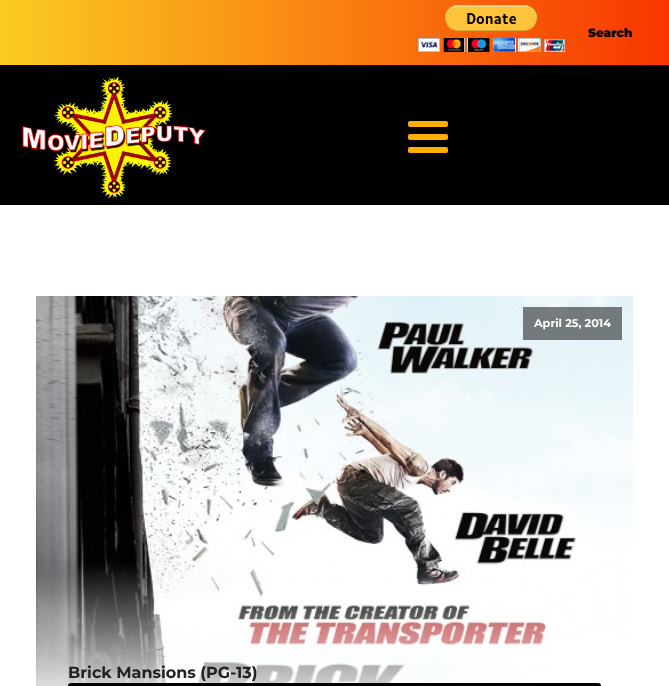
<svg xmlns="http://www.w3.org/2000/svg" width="669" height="686">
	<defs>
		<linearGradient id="g1" gradientUnits="userSpaceOnUse" x1="0" y1="33" x2="669" y2="32"><stop offset="0" stop-color="#FACC22" /><stop offset="1" stop-color="#F83600" /></linearGradient>
	</defs>
	<rect width="100%" height="100%" fill="#FFFFFF" />
	<rect x="0" y="0" width="669" height="65" fill="url(#g1)" />
	<image x="418" y="5" width="147" height="47" href="assets/img1.png" />
	<text x="588" y="37" font-family="Montserrat" font-size="12" font-weight="900" fill="#000000">Search</text>
	<rect x="0" y="65" width="669" height="140" fill="#000000" />
	<image x="22" y="76" width="184" height="123" href="assets/img2.png" />
	<rect x="408" y="121" width="40" height="6" rx="2" fill="#FFAE00" />
	<rect x="408" y="134" width="40" height="6" rx="2" fill="#FFAE00" />
	<rect x="408" y="147" width="40" height="6" rx="2" fill="#FFAE00" />
	<image x="36" y="296" width="597" height="390" href="assets/img3.png" />
	<rect x="523" y="307" width="99" height="33" fill="#000000" fill-opacity="0.5" />
	<text x="534" y="327" font-family="Montserrat" font-size="11.25" font-weight="700" fill="#FFFFFF">April 25, 2014</text>
	<text x="68" y="678" font-family="Montserrat" font-size="16" font-weight="700" fill="#222222">Brick Mansions (PG-13)</text>
	<rect x="68" y="683" width="533" height="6" rx="3" fill="#000000" />
</svg>
